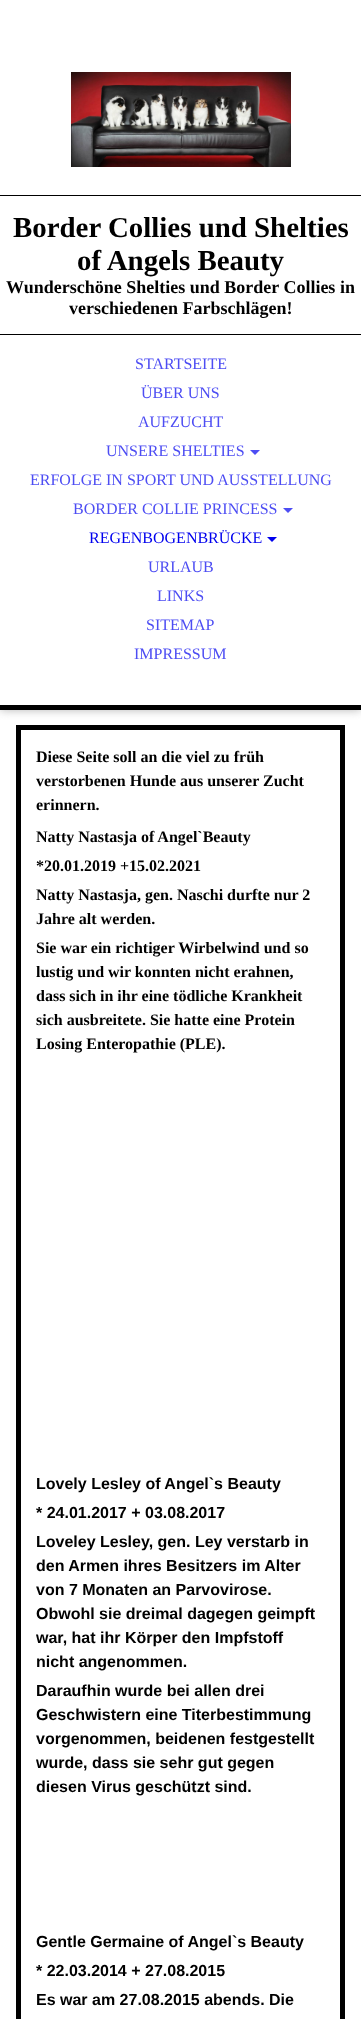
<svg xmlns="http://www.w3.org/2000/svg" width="361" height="2019">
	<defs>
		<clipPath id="clip1"><rect x="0" y="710" width="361" height="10" /></clipPath>
	</defs>
	<rect width="100%" height="100%" fill="#FFFFFF" />
	<rect x="18.5" y="727.5" width="324" height="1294" fill="none" stroke="#000000" stroke-width="5" />
	<g clip-path="url(#clip1)">
		<rect x="0" y="0" width="361" height="710" fill="#B5B5B5" filter="blur(5px)" />
	</g>
	<rect x="0" y="705" width="361" height="5" fill="#000000" />
	<image x="71" y="72" width="220" height="95" href="assets/img1.png" />
	<rect x="0" y="195" width="361" height="1" fill="#000000" />
	<g font-family="Liberation Serif" font-size="28.9" font-weight="700" fill="#000000">
		<text x="13" y="237">Border Collies und Shelties</text>
		<text x="77" y="270">of Angels Beauty</text>
	</g>
	<g font-family="Liberation Serif" font-size="18" font-weight="700" fill="#000000">
		<text x="6" y="293">Wunderschöne Shelties und Border Collies in</text>
		<text x="69" y="314">verschiedenen Farbschlägen!</text>
	</g>
	<rect x="0" y="334" width="361" height="1" fill="#000000" />
	<g font-family="Liberation Serif" font-size="16" fill="#4D4DF3">
		<text x="135" y="369">STARTSEITE</text>
		<text x="141" y="398">ÜBER UNS</text>
		<text x="138" y="427">AUFZUCHT</text>
		<text x="106" y="456">UNSERE SHELTIES</text>
	</g>
	<path d="M250 450H260L255 455Z" fill="#4D4DF3" />
	<g font-family="Liberation Serif" font-size="16" fill="#4D4DF3">
		<text x="30" y="485">ERFOLGE IN SPORT UND AUSSTELLUNG</text>
		<text x="73" y="514">BORDER COLLIE PRINCESS</text>
	</g>
	<path d="M283 508H293L288 513Z" fill="#4D4DF3" />
	<text x="89" y="543" font-family="Liberation Serif" font-size="16" fill="#0000EE">REGENBOGENBRÜCKE</text>
	<path d="M267 537H277L272 542Z" fill="#0000EE" />
	<g font-family="Liberation Serif" font-size="16" fill="#4D4DF3">
		<text x="148" y="572">URLAUB</text>
		<text x="157" y="601">LINKS</text>
		<text x="146" y="630">SITEMAP</text>
		<text x="134" y="659">IMPRESSUM</text>
	</g>
	<g font-family="Liberation Serif" font-size="16" font-weight="700" fill="#000000">
		<text x="36" y="762">Diese Seite soll an die viel zu früh</text>
		<text x="36" y="786">verstorbenen Hunde aus unserer Zucht</text>
		<text x="36" y="810">erinnern.</text>
		<text x="36" y="842">Natty Nastasja of Angel`Beauty</text>
		<text x="36" y="871">*20.01.2019 +15.02.2021</text>
		<text x="36" y="900">Natty Nastasja, gen. Naschi durfte nur 2</text>
		<text x="36" y="924">Jahre alt werden.</text>
		<text x="36" y="953">Sie war ein richtiger Wirbelwind und so</text>
		<text x="36" y="977">lustig und wir konnten nicht erahnen,</text>
		<text x="36" y="1001">dass sich in ihr eine tödliche Krankheit</text>
		<text x="36" y="1025">sich ausbreitete. Sie hatte eine Protein</text>
		<text x="36" y="1049">Losing Enteropathie (PLE).</text>
	</g>
	<g font-family="Liberation Sans" font-size="16" font-weight="700" fill="#000000">
		<text x="36" y="1489">Lovely Lesley of Angel`s Beauty</text>
		<text x="36" y="1518">* 24.01.2017 + 03.08.2017</text>
		<text x="36" y="1547">Loveley Lesley, gen. Ley verstarb in</text>
		<text x="36" y="1571">den Armen ihres Besitzers im Alter</text>
		<text x="36" y="1595">von 7 Monaten an Parvovirose.</text>
		<text x="36" y="1619">Obwohl sie dreimal dagegen geimpft</text>
		<text x="36" y="1643">war, hat ihr Körper den Impfstoff</text>
		<text x="36" y="1667">nicht angenommen.</text>
		<text x="36" y="1696">Daraufhin wurde bei allen drei</text>
		<text x="36" y="1720">Geschwistern eine Titerbestimmung</text>
		<text x="36" y="1744">vorgenommen, beidenen festgestellt</text>
		<text x="36" y="1768">wurde, dass sie sehr gut gegen</text>
		<text x="36" y="1792">diesen Virus geschützt sind.</text>
		<text x="36" y="1947">Gentle Germaine of Angel`s Beauty</text>
		<text x="36" y="1976">* 22.03.2014 + 27.08.2015</text>
		<text x="36" y="2005">Es war am 27.08.2015 abends. Die</text>
	</g>
</svg>
